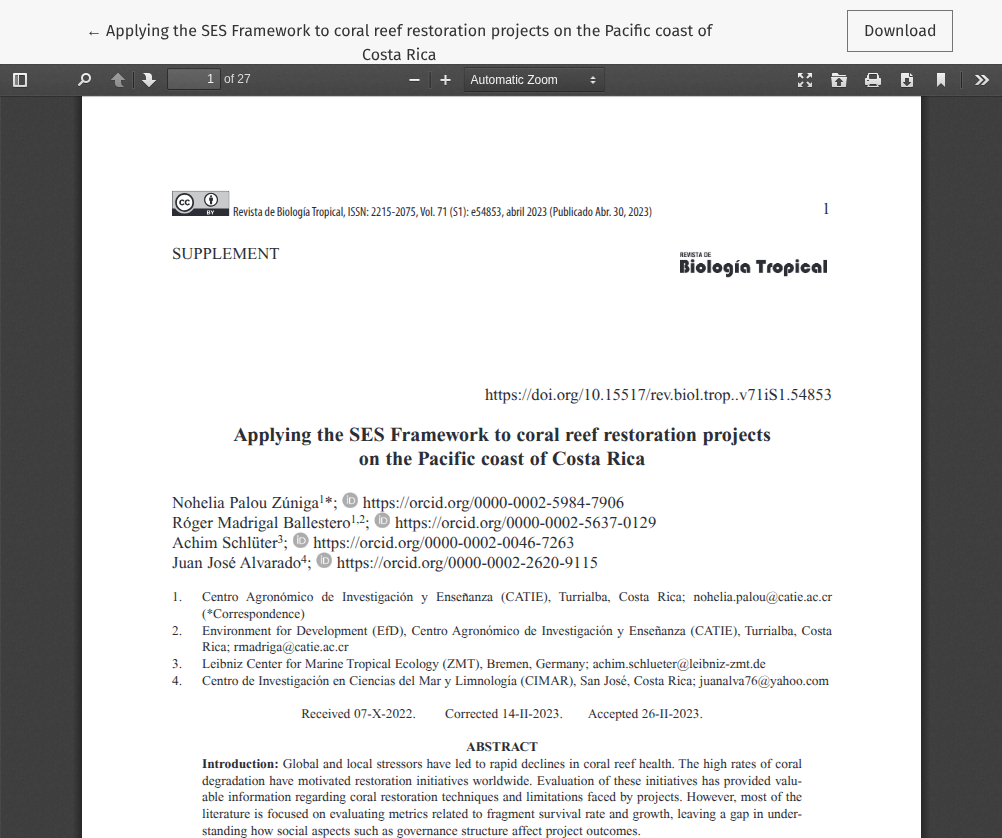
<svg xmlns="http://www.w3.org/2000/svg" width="1002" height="838">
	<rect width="100%" height="100%" fill="#F7F7F7" />
	<text x="86" y="36" font-family="Liberation Sans" font-size="16" fill="#333333">←</text>
	<g font-family="Fira Sans" font-size="16" fill="#333333">
		<text x="106" y="36">Applying the SES Framework to coral reef restoration projects on the Pacific coast of</text>
		<text x="362" y="60">Costa Rica</text>
	</g>
	<rect x="847.5" y="10.5" width="105" height="41" fill="none" stroke="#757575" />
	<text x="864" y="36" font-family="Fira Sans" font-size="16" fill="#333333">Download</text>
	<image x="0" y="64" width="1002" height="774" href="assets/img1.png" />
</svg>
